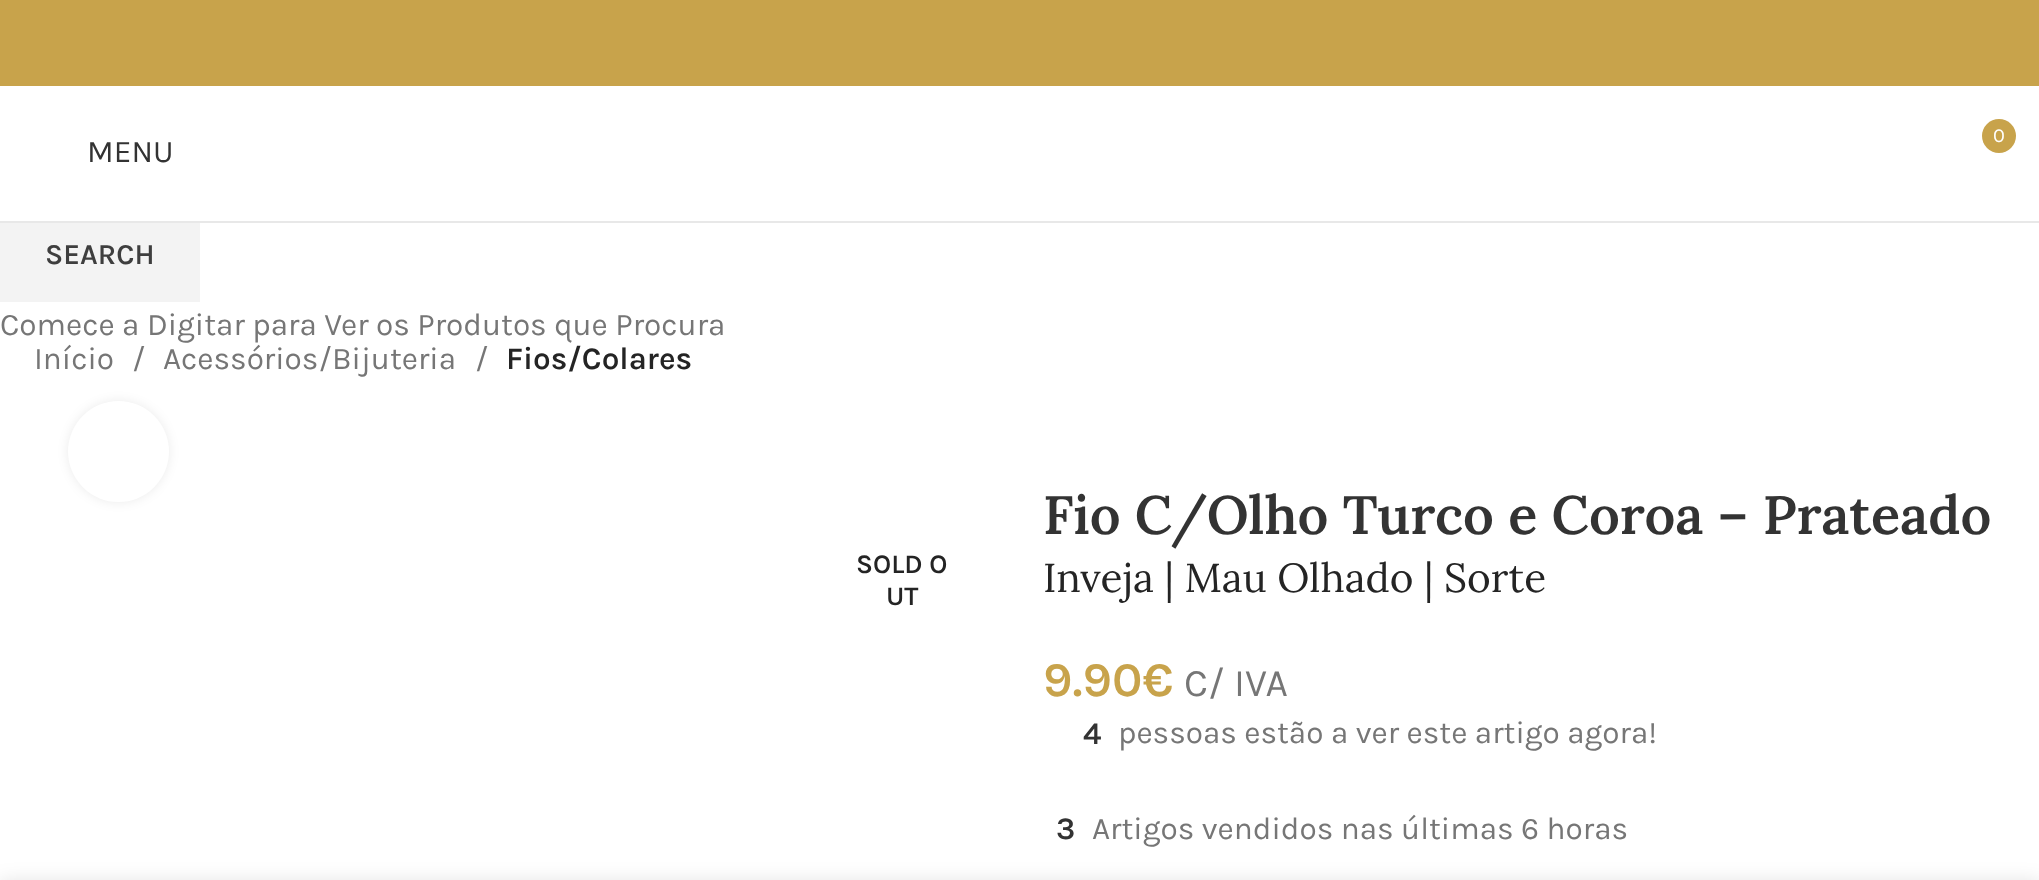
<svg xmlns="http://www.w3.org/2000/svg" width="2039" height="880">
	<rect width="100%" height="100%" fill="#FFFFFF" />
	<rect x="0" y="0" width="2039" height="86" fill="#C8A34B" />
	<rect x="0" y="221" width="2039" height="2" fill="#E8E8E8" />
	<circle cx="1999" cy="136" r="17" fill="#C8A34B" />
	<text x="1993" y="142" font-family="Karla" font-size="20" fill="#FFFFFF">0</text>
	<text x="87" y="162" font-family="Karla" font-size="31.5" fill="#333333">MENU</text>
	<g font-family="Karla" font-size="31.5" fill="#767676">
		<text x="34" y="369">Início</text>
		<text x="132" y="369">/</text>
		<text x="163" y="369">Acessórios/Bijuteria</text>
		<text x="475" y="369">/</text>
	</g>
	<text x="506" y="369" font-family="Karla" font-size="31.5" font-weight="600" fill="#242424">Fios/Colares</text>
	<rect x="68" y="401" width="101" height="101" rx="50.5" fill="#000000" fill-opacity="0.08" filter="blur(5.5px)" />
	<circle cx="118.5" cy="451.5" r="50.5" fill="#FFFFFF" />
	<g font-family="Karla" font-size="27" font-weight="600" fill="#242424">
		<text x="856" y="573">SOLD O</text>
		<text x="886" y="605">UT</text>
	</g>
	<text x="1043" y="534" font-family="Lora" font-size="54" font-weight="600" fill="#333333">Fio C/Olho Turco e Coroa – Prateado</text>
	<text x="1043" y="592" font-family="Lora" font-size="40.5" fill="#242424">Inveja | Mau Olhado | Sorte</text>
	<text x="1043" y="696" font-family="Karla" font-size="49" font-weight="600" fill="#C8A34B">9.90€</text>
	<text x="1184" y="696" font-family="Karla" font-size="39" fill="#767676">C/ IVA</text>
	<text x="1083" y="744" font-family="Karla" font-size="31.5" font-weight="600" fill="#333333">4</text>
	<text x="1118" y="743" font-family="Karla" font-size="31.5" fill="#767676">pessoas estão a ver este artigo agora!</text>
	<text x="1056" y="839" font-family="Karla" font-size="31.5" font-weight="600" fill="#333333">3</text>
	<text x="1092" y="839" font-family="Karla" font-size="31.5" fill="#767676">Artigos vendidos nas últimas 6 horas</text>
	<rect x="0" y="223" width="200" height="79" fill="#F3F3F3" />
	<text x="45" y="264" font-family="Karla" font-size="29" font-weight="600" fill="#3E3E3E">SEARCH</text>
	<text x="0" y="335" font-family="Karla" font-size="31.5" fill="#767676">Comece a Digitar para Ver os Produtos que Procura</text>
	<rect x="0" y="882" width="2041" height="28" fill="#000000" fill-opacity="0.12" filter="blur(10px)" />
</svg>
